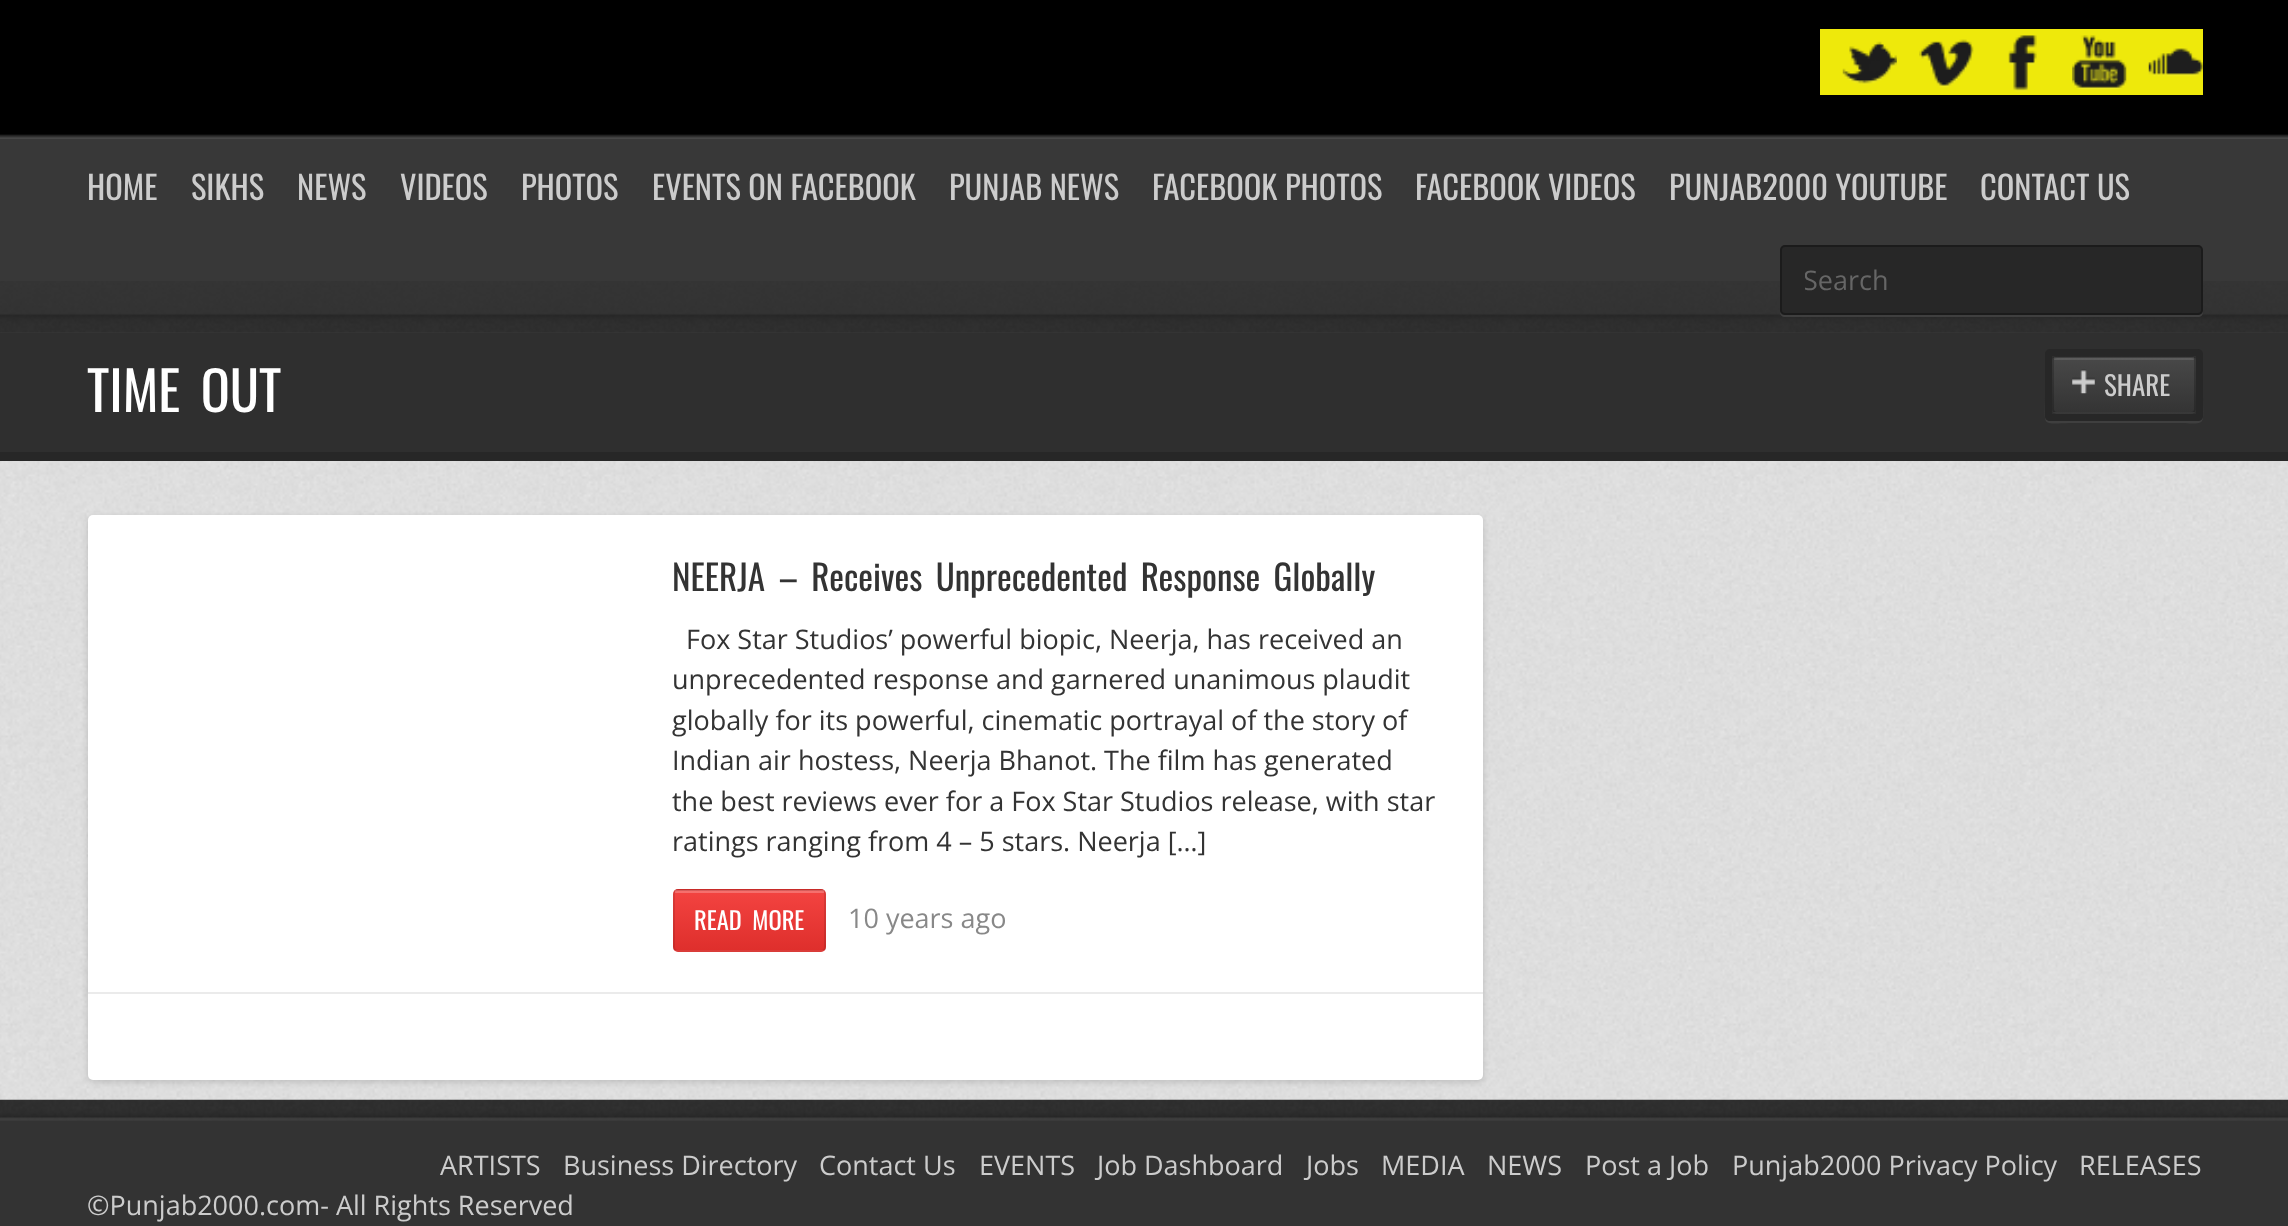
<svg xmlns="http://www.w3.org/2000/svg" width="2288" height="1226">
	<defs>
		<clipPath id="clip1"><rect x="1805" y="259" width="337" height="43" /></clipPath>
		<clipPath id="clip2"><rect x="2052" y="356" width="144" height="58" rx="5" /></clipPath>
		<linearGradient id="g1" gradientUnits="userSpaceOnUse" x1="2054" y1="358" x2="2054" y2="304"><stop offset="0" stop-color="#000000" stop-opacity="0.08" /><stop offset="0.5" stop-color="#808080" stop-opacity="0.08" /><stop offset="1" stop-color="#FFFFFF" stop-opacity="0.08" /></linearGradient>
		<linearGradient id="g2" gradientUnits="userSpaceOnUse" x1="2054" y1="412" x2="2054" y2="358"><stop offset="0" stop-color="#343434" /><stop offset="0.5" stop-color="#3E3E3E" /><stop offset="1" stop-color="#484848" /></linearGradient>
		<linearGradient id="g3" gradientUnits="userSpaceOnUse" x1="2054" y1="466" x2="2054" y2="412"><stop offset="0" stop-color="#000000" stop-opacity="0.08" /><stop offset="0.5" stop-color="#808080" stop-opacity="0.08" /><stop offset="1" stop-color="#FFFFFF" stop-opacity="0.08" /></linearGradient>
		<clipPath id="clip3"><rect x="673" y="889" width="153" height="63" rx="5" /></clipPath>
		<linearGradient id="g4" gradientUnits="userSpaceOnUse" x1="675" y1="891" x2="675" y2="833"><stop offset="0" stop-color="#000000" stop-opacity="0.08" /><stop offset="0.5" stop-color="#808080" stop-opacity="0.08" /><stop offset="1" stop-color="#FFFFFF" stop-opacity="0.08" /></linearGradient>
		<linearGradient id="g5" gradientUnits="userSpaceOnUse" x1="675" y1="950" x2="675" y2="891"><stop offset="0" stop-color="#000000" stop-opacity="0.08" /><stop offset="0.5" stop-color="#808080" stop-opacity="0.08" /><stop offset="1" stop-color="#FFFFFF" stop-opacity="0.08" /></linearGradient>
		<linearGradient id="g6" gradientUnits="userSpaceOnUse" x1="675" y1="1008" x2="675" y2="950"><stop offset="0" stop-color="#000000" stop-opacity="0.08" /><stop offset="0.5" stop-color="#808080" stop-opacity="0.08" /><stop offset="1" stop-color="#FFFFFF" stop-opacity="0.08" /></linearGradient>
	</defs>
	<rect width="100%" height="100%" fill="#FFFFFF" />
	<image x="0" y="461" width="2288" height="639" href="assets/img1.png" />
	<rect x="0" y="135" width="2288" height="198" fill="#383838" />
	<image x="0" y="281" width="2288" height="52" href="assets/img2.png" />
	<rect x="0" y="0" width="2288" height="135" fill="#000000" />
	<rect x="1820" y="29" width="383" height="66" fill="#EEE90B" />
	<image x="1842" y="41" width="55" height="44" href="assets/img3.png" />
	<image x="1919" y="39" width="55" height="49" href="assets/img4.png" />
	<image x="2008" y="35" width="29" height="57" href="assets/img5.png" />
	<image x="2072" y="35" width="55" height="55" href="assets/img6.png" />
	<image x="2148" y="48" width="55" height="29" href="assets/img7.png" />
	<image x="0" y="134" width="2288" height="5" href="assets/img8.png" />
	<g font-family="Oswald" font-size="32.5" fill="#CCCCCC">
		<text x="87" y="200">HOME</text>
		<text x="191" y="200">SIKHS</text>
		<text x="297" y="200">NEWS</text>
		<text x="400" y="200">VIDEOS</text>
		<text x="521" y="200">PHOTOS</text>
		<text x="652" y="200">EVENTS ON FACEBOOK</text>
		<text x="949" y="200">PUNJAB NEWS</text>
		<text x="1152" y="200">FACEBOOK PHOTOS</text>
		<text x="1415" y="200">FACEBOOK VIDEOS</text>
		<text x="1669" y="200">PUNJAB2000 YOUTUBE</text>
		<text x="1980" y="200">CONTACT US</text>
	</g>
	<path d="M1780 312C1780 315 1782 317 1785 317H2198C2201 317 2203 315 2203 312V251V310C2203 313 2201 315 2198 315H1784C1782 315 1781 314 1780 312Z" fill="#3F3F3F" />
	<rect x="1781" y="246" width="421" height="68" rx="4" fill="#272727" stroke="#1B1B1B" stroke-width="2" />
	<g clip-path="url(#clip1)">
		<text x="1803" y="290" font-family="Open Sans" font-size="27" fill="#666666">Search</text>
	</g>
	<rect x="0" y="333" width="2288" height="119" fill="#2F2F2F" />
	<rect x="0" y="452" width="2288" height="9" fill="#272727" />
	<text x="87" y="412" word-spacing="8" font-family="Oswald" font-size="54" fill="#FFFFFF">TIME OUT</text>
	<path d="M2045 354V397C2045 429 2040 423 2075 423H2173C2208 423 2203 429 2203 397V354V416C2203 419 2201 421 2198 421H2050C2047 421 2045 419 2045 416Z" fill="#3F3F3F" />
	<rect x="2048.5" y="352.5" width="151" height="65" rx="1.5" fill="none" stroke="#272727" stroke-width="7" />
	<rect x="2052" y="356" width="144" height="58" rx="5" fill="#383838" />
	<g clip-path="url(#clip2)">
		<rect x="2052" y="356" width="144" height="2" fill="url(#g1)" />
		<rect x="2052" y="358" width="144" height="54" fill="url(#g2)" />
		<rect x="2052" y="412" width="144" height="2" fill="url(#g3)" />
	</g>
	<rect x="2053" y="357" width="142" height="56" rx="4" fill="none" stroke="#000000" stroke-opacity="0.2" stroke-width="2" />
	<image x="2072" y="369" width="23" height="25" href="assets/img9.png" />
	<rect x="2054" y="357" width="140" height="3" fill="#FFFFFF" fill-opacity="0.11" />
	<text x="2104" y="396" font-family="Oswald" font-size="27" fill="#CCCCCC">SHARE</text>
	<rect x="88" y="518" width="1395" height="564" rx="5" fill="#000000" fill-opacity="0.15" filter="blur(3.5px)" />
	<rect x="88" y="515" width="1395" height="565" rx="5" fill="#FFFFFF" />
	<rect x="88" y="992" width="1395" height="2" fill="#EBEBEB" />
	<text x="672" y="591" word-spacing="5.25" font-family="Oswald" font-size="35.1" fill="#333333">NEERJA – Receives Unprecedented Response Globally</text>
	<g font-family="Open Sans" font-size="27" fill="#333333">
		<text x="686" y="649">Fox Star Studios’ powerful biopic, Neerja, has received an</text>
		<text x="672" y="689">unprecedented response and garnered unanimous plaudit</text>
		<text x="672" y="730">globally for its powerful, cinematic portrayal of the story of</text>
		<text x="672" y="770">Indian air hostess, Neerja Bhanot. The film has generated</text>
		<text x="672" y="811">the best reviews ever for a Fox Star Studios release, with star</text>
		<text x="672" y="851">ratings ranging from 4 – 5 stars. Neerja […]</text>
	</g>
	<rect x="673" y="889" width="153" height="63" rx="5" fill="#F23330" />
	<g clip-path="url(#clip3)">
		<rect x="673" y="889" width="153" height="2" fill="url(#g4)" />
	</g>
	<rect x="673" y="891" width="153" height="59" fill="url(#g5)" />
	<g clip-path="url(#clip3)">
		<rect x="673" y="950" width="153" height="2" fill="url(#g6)" />
	</g>
	<rect x="674" y="890" width="151" height="61" rx="4" fill="none" stroke="#000000" stroke-opacity="0.1" stroke-width="2" />
	<rect x="675" y="890" width="149" height="3" fill="#FFFFFF" fill-opacity="0.24" />
	<text x="694" y="930" word-spacing="5" font-family="Oswald" font-size="24.5" fill="#FFFFFF">READ MORE</text>
	<text x="848" y="928" font-family="Open Sans" font-size="27" fill="#888888">10 years ago</text>
	<image x="0" y="1099" width="2288" height="22" href="assets/img10.png" />
	<rect x="0" y="1121" width="2288" height="105" fill="#333333" />
	<g font-family="Open Sans" font-size="27" fill="#CCCCCC">
		<text x="440" y="1175">ARTISTS</text>
		<text x="563" y="1175">Business Directory</text>
		<text x="819" y="1175">Contact Us</text>
		<text x="979" y="1175">EVENTS</text>
		<text x="1097" y="1175">Job Dashboard</text>
		<text x="1306" y="1175">Jobs</text>
		<text x="1381" y="1175">MEDIA</text>
		<text x="1487" y="1175">NEWS</text>
		<text x="1585" y="1175">Post a Job</text>
		<text x="1732" y="1175">Punjab2000 Privacy Policy</text>
		<text x="2079" y="1175">RELEASES</text>
		<text x="87" y="1215">©Punjab2000.com- All Rights Reserved</text>
	</g>
</svg>
